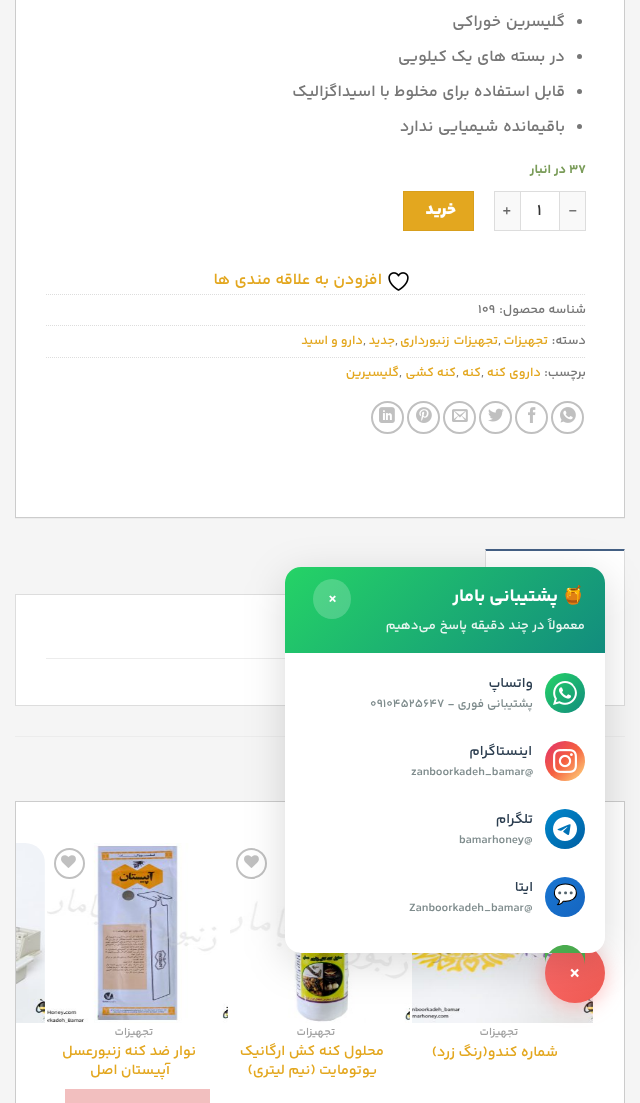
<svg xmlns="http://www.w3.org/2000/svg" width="640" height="1103">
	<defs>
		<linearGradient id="g1" gradientUnits="userSpaceOnUse" x1="545" y1="943" x2="605" y2="1003"><stop offset="0" stop-color="#FF6B6B" /><stop offset="1" stop-color="#EE5A52" /></linearGradient>
		<linearGradient id="g2" gradientUnits="userSpaceOnUse" x1="344" y1="509" x2="547" y2="712"><stop offset="0" stop-color="#25D366" /><stop offset="1" stop-color="#128C7E" /></linearGradient>
		<linearGradient id="g3" gradientUnits="userSpaceOnUse" x1="545" y1="673" x2="585" y2="713"><stop offset="0" stop-color="#25D366" /><stop offset="1" stop-color="#128C7E" /></linearGradient>
		<linearGradient id="g4" gradientUnits="userSpaceOnUse" x1="545" y1="741" x2="585" y2="781"><stop offset="0" stop-color="#E1306C" /><stop offset="0.5" stop-color="#F56040" /><stop offset="1" stop-color="#FFDC80" /></linearGradient>
		<linearGradient id="g5" gradientUnits="userSpaceOnUse" x1="545" y1="809" x2="585" y2="849"><stop offset="0" stop-color="#0088CC" /><stop offset="1" stop-color="#005FA3" /></linearGradient>
		<linearGradient id="g6" gradientUnits="userSpaceOnUse" x1="545" y1="877" x2="585" y2="917"><stop offset="0" stop-color="#1976D2" /><stop offset="1" stop-color="#1565C0" /></linearGradient>
		<linearGradient id="g7" gradientUnits="userSpaceOnUse" x1="545" y1="945" x2="585" y2="985"><stop offset="0" stop-color="#4CAF50" /><stop offset="1" stop-color="#45A049" /></linearGradient>
	</defs>
	<rect width="100%" height="100%" fill="#F5F5F5" />
	<rect x="15.5" y="-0.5" width="609" height="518" fill="#FFFFFF" stroke="#CCCCCC" />
	<circle cx="579.5" cy="21.5" r="2.5" fill="#777777" />
	<text x="565" y="26" word-spacing="1" font-family="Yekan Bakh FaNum" font-size="16" font-weight="600" letter-spacing="-0.05" direction="rtl" fill="#777777">گلیسرین خوراکی</text>
	<circle cx="579.5" cy="56.5" r="2.5" fill="#777777" />
	<text x="565" y="61" word-spacing="0.5" font-family="Yekan Bakh FaNum" font-size="16" font-weight="600" letter-spacing="-0.05" direction="rtl" fill="#777777">در بسته های یک کیلویی</text>
	<circle cx="579.5" cy="91.5" r="2.5" fill="#777777" />
	<text x="565" y="96" word-spacing="0.5" font-family="Yekan Bakh FaNum" font-size="16" font-weight="600" letter-spacing="-0.05" direction="rtl" fill="#777777">قابل استفاده برای مخلوط با اسیداگزالیک</text>
	<circle cx="579.5" cy="126.5" r="2.5" fill="#777777" />
	<text x="565" y="131" word-spacing="1" font-family="Yekan Bakh FaNum" font-size="16" font-weight="600" letter-spacing="-0.05" direction="rtl" fill="#777777">باقیمانده شیمیایی ندارد</text>
	<text x="569" y="173" font-family="Yekan Bakh FaNum" font-size="12.75" font-weight="700" letter-spacing="-0.05" fill="#7A9C59">37</text>
	<text x="566" y="173" font-family="Yekan Bakh FaNum" font-size="12.75" font-weight="700" letter-spacing="-0.05" direction="rtl" fill="#7A9C59">در انبار</text>
	<rect x="560" y="192" width="25" height="38" fill="#F9F9F9" />
	<rect x="560" y="191" width="26" height="1" fill="#DDDDDD" />
	<rect x="585" y="191" width="1" height="40" fill="#DDDDDD" />
	<rect x="560" y="230" width="26" height="1" fill="#DDDDDD" />
	<text x="568" y="214" font-family="Yekan Bakh FaNum" font-size="16" fill="#666666">-</text>
	<rect x="520.5" y="191.5" width="39" height="39" fill="none" stroke="#DDDDDD" />
	<text x="537" y="215" font-family="Yekan Bakh FaNum" font-size="16" font-weight="600" letter-spacing="-0.05" fill="#333333">1</text>
	<rect x="495" y="192" width="25" height="38" fill="#F9F9F9" />
	<rect x="494" y="191" width="26" height="1" fill="#DDDDDD" />
	<rect x="494" y="230" width="26" height="1" fill="#DDDDDD" />
	<rect x="494" y="191" width="1" height="40" fill="#DDDDDD" />
	<text x="502" y="214" font-family="Yekan Bakh FaNum" font-size="16" fill="#666666">+</text>
	<rect x="403.5" y="191.5" width="70" height="39" fill="#E3A71F" stroke="#D89F1D" />
	<text x="456" y="214" font-family="Yekan Bakh FaNum" font-size="16" font-weight="900" letter-spacing="0.5" direction="rtl" fill="#FFFFFF">خرید</text>
	<image x="388" y="272" width="21" height="19" href="assets/img1.png" />
	<text x="382" y="284" word-spacing="0.5" font-family="Yekan Bakh FaNum" font-size="16" font-weight="600" letter-spacing="-0.05" direction="rtl" fill="#E3A71F">افزودن به علاقه مندی ها</text>
	<path d="M46 294.5H586" fill="none" stroke="#DDDDDD" stroke-dasharray="1 1" />
	<text x="586" y="313" font-family="Yekan Bakh FaNum" font-size="12.75" font-weight="600" letter-spacing="-0.05" direction="rtl" fill="#777777">شناسه محصول:</text>
	<text x="478" y="313" font-family="Yekan Bakh FaNum" font-size="12.75" font-weight="600" letter-spacing="-0.05" fill="#777777">109</text>
	<path d="M46 325.5H586" fill="none" stroke="#DDDDDD" stroke-dasharray="1 1" />
	<text x="586" y="344" font-family="Yekan Bakh FaNum" font-size="12.75" font-weight="600" letter-spacing="-0.05" direction="rtl" fill="#777777">دسته:</text>
	<g font-family="Yekan Bakh FaNum" font-size="12.75" font-weight="600" letter-spacing="-0.05" direction="rtl" fill="#E3A71F">
		<text x="548" y="344">تجهيزات</text>
		<text x="498" y="344" word-spacing="1">تجهيزات زنبورداری</text>
		<text x="395" y="344">جدید</text>
		<text x="363" y="344">دارو و اسيد</text>
	</g>
	<g font-family="Yekan Bakh FaNum" font-size="12.75" font-weight="600" letter-spacing="-0.05" fill="#777777">
		<text x="498" y="344">,</text>
		<text x="395" y="344">,</text>
		<text x="363" y="344">,</text>
	</g>
	<path d="M46 357.5H586" fill="none" stroke="#DDDDDD" stroke-dasharray="1 1" />
	<text x="586" y="376" font-family="Yekan Bakh FaNum" font-size="12.75" font-weight="600" letter-spacing="-0.05" direction="rtl" fill="#777777">برچسب:</text>
	<text x="541" y="376" font-family="Yekan Bakh FaNum" font-size="12.75" font-weight="600" letter-spacing="-0.05" direction="rtl" fill="#E3A71F">داروی کنه</text>
	<text x="481" y="376" font-family="Yekan Bakh FaNum" font-size="12.75" font-weight="600" letter-spacing="-0.05" fill="#777777">,</text>
	<text x="481" y="376" font-family="Yekan Bakh FaNum" font-size="12.75" font-weight="600" letter-spacing="-0.05" direction="rtl" fill="#E3A71F">کنه</text>
	<text x="456" y="376" font-family="Yekan Bakh FaNum" font-size="12.75" font-weight="600" letter-spacing="-0.05" fill="#777777">,</text>
	<text x="456" y="376" font-family="Yekan Bakh FaNum" font-size="12.75" font-weight="600" letter-spacing="-0.05" direction="rtl" fill="#E3A71F">کنه کشی</text>
	<text x="399" y="376" font-family="Yekan Bakh FaNum" font-size="12.75" font-weight="600" letter-spacing="-0.05" fill="#777777">,</text>
	<text x="399" y="376" font-family="Yekan Bakh FaNum" font-size="12.75" font-weight="600" letter-spacing="-0.05" direction="rtl" fill="#E3A71F">گلیسیرین</text>
	<circle cx="567.5" cy="417.5" r="15.5" fill="none" stroke="#C0C0C0" stroke-width="2" />
	<image x="560" y="407" width="16" height="16" href="assets/img2.png" />
	<circle cx="531.5" cy="417.5" r="15.5" fill="none" stroke="#C0C0C0" stroke-width="2" />
	<image x="528" y="407" width="8" height="16" href="assets/img3.png" />
	<circle cx="495.5" cy="417.5" r="15.5" fill="none" stroke="#C0C0C0" stroke-width="2" />
	<image x="488" y="408" width="16" height="14" href="assets/img4.png" />
	<circle cx="459.5" cy="417.5" r="15.5" fill="none" stroke="#C0C0C0" stroke-width="2" />
	<image x="452" y="409" width="16" height="13" href="assets/img5.png" />
	<circle cx="423.5" cy="417.5" r="15.5" fill="none" stroke="#C0C0C0" stroke-width="2" />
	<image x="416" y="407" width="16" height="16" href="assets/img6.png" />
	<circle cx="387.5" cy="417.5" r="15.5" fill="none" stroke="#C0C0C0" stroke-width="2" />
	<image x="379" y="407" width="16" height="16" href="assets/img7.png" />
	<rect x="15" y="518" width="610" height="1" fill="#ECECEC" />
	<rect x="15.5" y="594.5" width="609" height="111" fill="#FFFFFF" stroke="#DDDDDD" />
	<rect x="485" y="549" width="140" height="46" fill="#FFFFFF" />
	<path d="M485 549H625L624 551H486Z" fill="#446084" />
	<path d="M625 549V595H624V551Z" fill="#DDDDDD" />
	<path d="M485 595V549L486 551V595Z" fill="#DDDDDD" />
	<rect x="46" y="658" width="239" height="1" fill="#ECECEC" />
	<rect x="15" y="736" width="610" height="1" fill="#ECECEC" />
	<rect x="15.5" y="801.5" width="609" height="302" fill="#FFFFFF" stroke="#CCCCCC" />
	<image x="16" y="843" width="29" height="180" href="assets/img8.png" />
	<image x="412" y="953" width="181" height="70" href="assets/img9.png" />
	<text x="518" y="1035" font-family="Yekan Bakh FaNum" font-size="11" font-weight="600" letter-spacing="0.5" direction="rtl" fill="#A0A0A0">تجهيزات</text>
	<text x="558" y="1056" font-family="Yekan Bakh FaNum" font-size="14.5" font-weight="600" letter-spacing="-0.05" direction="rtl" fill="#E3A71F">شماره کندو(رنگ زرد)</text>
	<image x="230" y="843" width="180" height="180" href="assets/img10.png" />
	<circle cx="251.5" cy="863.5" r="14.5" fill="none" stroke="#C0C0C0" stroke-width="2" />
	<image x="244" y="855" width="15" height="13" href="assets/img11.png" />
	<text x="335" y="1035" font-family="Yekan Bakh FaNum" font-size="11" font-weight="600" letter-spacing="0.5" direction="rtl" fill="#A0A0A0">تجهيزات</text>
	<g font-family="Yekan Bakh FaNum" font-size="14.5" font-weight="600" letter-spacing="-0.05" direction="rtl" fill="#E3A71F">
		<text x="384" y="1055">محلول کنه کش ارگانیک</text>
		<text x="377" y="1074">یوتومایت (نیم لیتری)</text>
	</g>
	<image x="47" y="843" width="181" height="180" href="assets/img12.png" />
	<circle cx="69.5" cy="863.5" r="14.5" fill="none" stroke="#C0C0C0" stroke-width="2" />
	<image x="61" y="855" width="15" height="13" href="assets/img11.png" />
	<text x="153" y="1035" font-family="Yekan Bakh FaNum" font-size="11" font-weight="600" letter-spacing="0.5" direction="rtl" fill="#A0A0A0">تجهيزات</text>
	<g font-family="Yekan Bakh FaNum" font-size="14.5" font-weight="600" letter-spacing="-0.05" direction="rtl" fill="#E3A71F">
		<text x="196" y="1055">نوار ضد کنه زنبورعسل</text>
		<text x="170" y="1074">آپیستان اصل</text>
	</g>
	<rect x="65" y="1089" width="145" height="14" fill="#F2BFBF" />
	<rect x="545" y="947" width="60" height="60" rx="30" fill="#FF6B6B" fill-opacity="0.4" filter="blur(10px)" />
	<circle cx="575" cy="973" r="30" fill="url(#g1)" />
	<rect x="285" y="577" width="320" height="386" rx="16" fill="#000000" fill-opacity="0.15" filter="blur(20px)" />
	<rect x="285" y="567" width="320" height="386" rx="16" fill="#FFFFFF" />
	<path d="M301 567H589C598 567 605 574 605 583V653H285V583C285 574 292 567 301 567Z" fill="url(#g2)" />
	<text x="585" y="601" font-family="Noto Color Emoji" font-size="18" font-weight="700" letter-spacing="-0.05" direction="rtl" fill="#FFFFFF">🍯</text>
	<text x="558" y="601" font-family="Yekan Bakh FaNum" font-size="18" font-weight="700" letter-spacing="-0.05" direction="rtl" fill="#FFFFFF">پشتیبانی بامار</text>
	<ellipse cx="332" cy="599" rx="19" ry="20" fill="#FFFFFF" fill-opacity="0.2" />
	<text x="328" y="602" font-family="Yekan Bakh FaNum" font-size="16" font-weight="600" letter-spacing="-0.05" fill="#FFFFFF">×</text>
	<text x="585" y="629" word-spacing="0.5" font-family="Yekan Bakh FaNum" font-size="13" font-weight="600" letter-spacing="-0.05" direction="rtl" fill="#E8F6F1">معمولاً در چند دقیقه پاسخ می‌دهیم</text>
	<circle cx="565" cy="693" r="20" fill="url(#g3)" />
	<image x="553" y="681" width="24" height="24" href="assets/img13.png" />
	<text x="533" y="687" font-family="Yekan Bakh FaNum" font-size="14" font-weight="600" letter-spacing="-0.05" direction="rtl" fill="#2C3E50">واتساپ</text>
	<text x="533" y="707" font-family="Yekan Bakh FaNum" font-size="12" font-weight="600" letter-spacing="-0.05" direction="rtl" fill="#7F8C8D">پشتیبانی فوری -</text>
	<text x="370" y="707" font-family="Yekan Bakh FaNum" font-size="12" font-weight="600" letter-spacing="-0.05" fill="#7F8C8D">09104525647</text>
	<circle cx="565" cy="761" r="20" fill="url(#g4)" />
	<image x="553" y="749" width="24" height="24" href="assets/img14.png" />
	<text x="532" y="755" font-family="Yekan Bakh FaNum" font-size="14" font-weight="600" letter-spacing="-0.05" direction="rtl" fill="#2C3E50">اینستاگرام</text>
	<text x="411" y="775" font-family="Yekan Bakh FaNum" font-size="12" font-weight="600" letter-spacing="-0.05" fill="#7F8C8D">zanboorkadeh_bamar@</text>
	<circle cx="565" cy="829" r="20" fill="url(#g5)" />
	<image x="553" y="817" width="24" height="24" href="assets/img15.png" />
	<text x="533" y="823" font-family="Yekan Bakh FaNum" font-size="14" font-weight="600" letter-spacing="-0.05" direction="rtl" fill="#2C3E50">تلگرام</text>
	<text x="459" y="843" font-family="Yekan Bakh FaNum" font-size="12" font-weight="600" letter-spacing="-0.05" fill="#7F8C8D">bamarhoney@</text>
	<circle cx="565" cy="897" r="20" fill="url(#g6)" />
	<text x="553" y="901" font-family="Noto Color Emoji" font-size="20" font-weight="700" letter-spacing="-0.05" fill="#333333">💬</text>
	<text x="533" y="891" font-family="Yekan Bakh FaNum" font-size="14" font-weight="600" letter-spacing="-0.05" direction="rtl" fill="#2C3E50">ایتا</text>
	<text x="409" y="911" font-family="Yekan Bakh FaNum" font-size="12" font-weight="600" letter-spacing="-0.05" fill="#7F8C8D">Zanboorkadeh_bamar@</text>
	<path d="M565 945C576 945 585 954 585 965V953H545V965C545 954 554 945 565 945Z" fill="url(#g7)" />
	<text x="569" y="977" font-family="Yekan Bakh FaNum" font-size="20" font-weight="600" letter-spacing="-0.05" fill="#FFFFFF">×</text>
</svg>
